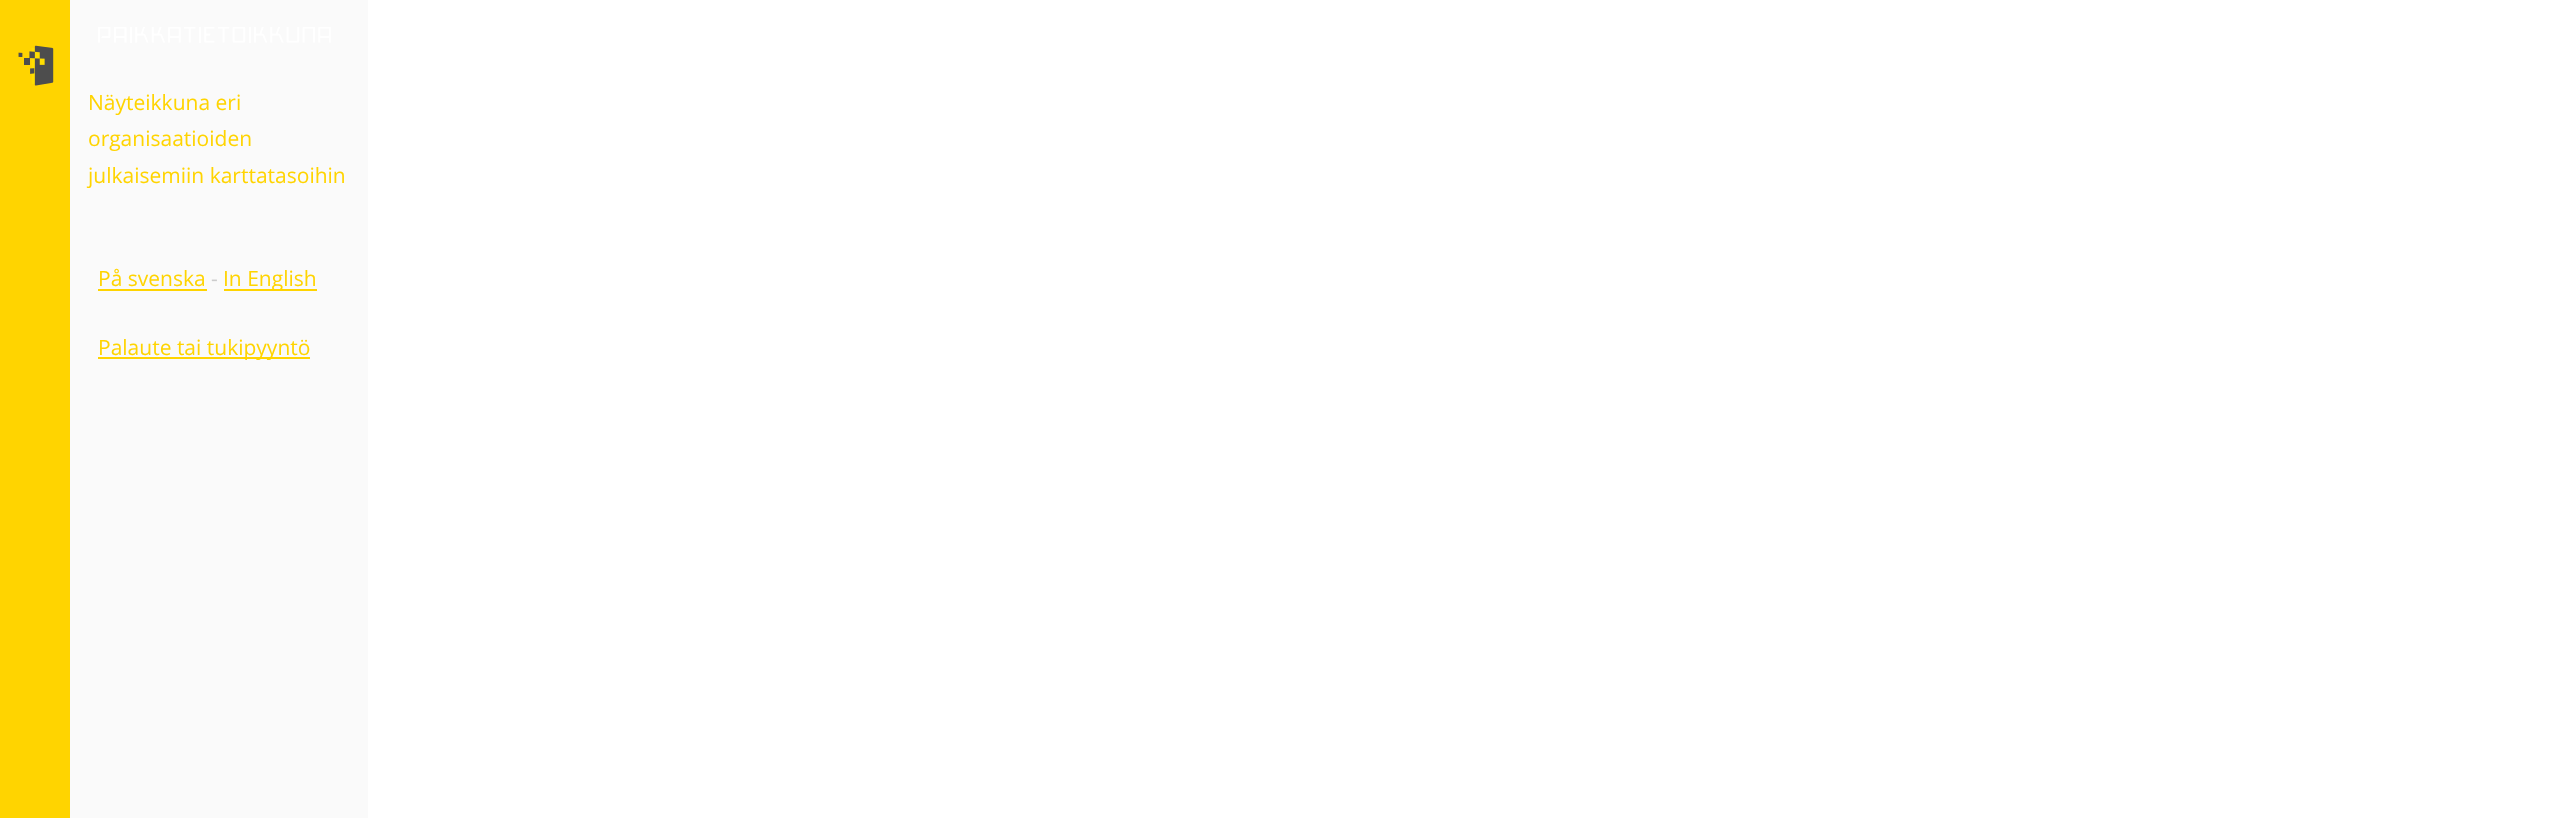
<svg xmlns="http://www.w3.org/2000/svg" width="2559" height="818">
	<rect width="100%" height="100%" fill="#FAFAFA" />
	<rect x="0" y="0" width="70" height="818" fill="#FFD400" />
	<image x="18" y="45" width="36" height="41" href="assets/img1.png" />
	<image x="98" y="27" width="233" height="16" href="assets/img2.png" />
	<g font-family="Open Sans" font-size="21" fill="#FFD400">
		<text x="88" y="110">Näyteikkuna eri</text>
		<text x="88" y="146">organisaatioiden</text>
		<text x="88" y="183">julkaisemiin karttatasoihin</text>
		<text x="98" y="286">På svenska</text>
	</g>
	<rect x="98" y="289" width="109" height="2" fill="#FFD400" />
	<text x="211" y="286" font-family="Open Sans" font-size="21" fill="#CCCCCC">-</text>
	<rect x="224" y="289" width="93" height="2" fill="#FFD400" />
	<text x="223" y="286" font-family="Open Sans" font-size="21" fill="#FFD400">In English</text>
	<rect x="98" y="357" width="212" height="2" fill="#FFD400" />
	<text x="98" y="355" font-family="Open Sans" font-size="21" fill="#FFD400">Palaute tai tukipyyntö</text>
	<rect x="368" y="0" width="2191" height="818" fill="#FFFFFF" />
</svg>
